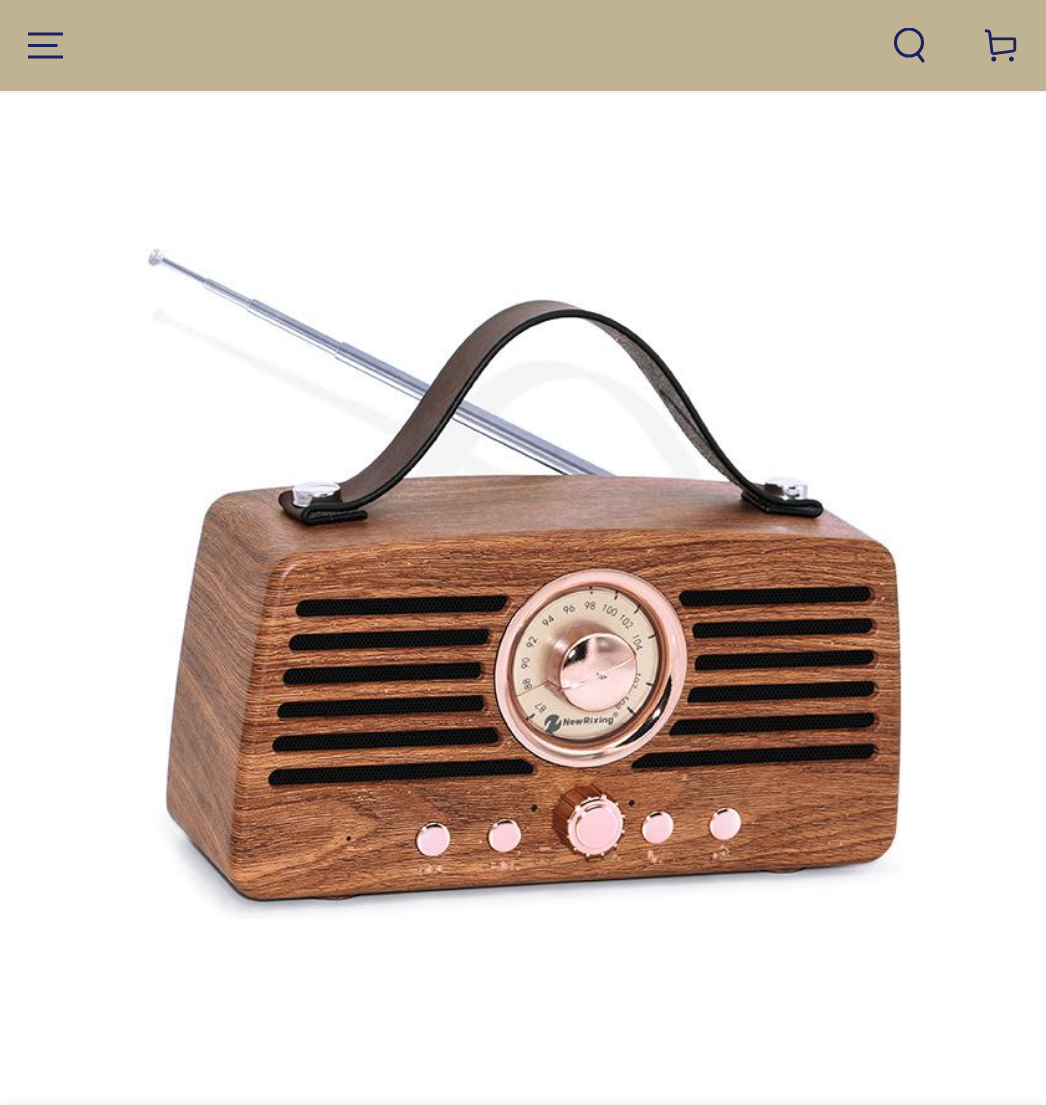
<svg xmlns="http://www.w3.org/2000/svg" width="1046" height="1105">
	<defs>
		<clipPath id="clip1"><rect x="893" y="28" width="35" height="35" /></clipPath>
	</defs>
	<rect width="100%" height="100%" fill="#FFFFFF" />
	<path d="M0 91V93H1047V2H1046V91Z" fill="#F2F2F4" />
	<rect x="0" y="0" width="1046" height="91" fill="#C0B394" />
	<path d="M28 57H63M28 45.5H57.5M28 34H63" fill="none" stroke="#1C2260" stroke-width="2.8" />
	<g clip-path="url(#clip1)">
		<circle cx="909" cy="42.5" r="13.5" fill="none" stroke="#1C2260" stroke-width="3.1" />
	</g>
	<path d="M917.5 53.5L923 61" fill="none" stroke="#1C2260" stroke-width="3.1" stroke-linecap="round" />
	<image x="984" y="29" width="33" height="33" href="assets/img1.png" />
	<image x="145" y="248" width="758" height="671" href="assets/img2.png" />
	<rect x="0" y="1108" width="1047" height="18" fill="#1C2260" fill-opacity="0.15" filter="blur(7px)" />
</svg>
